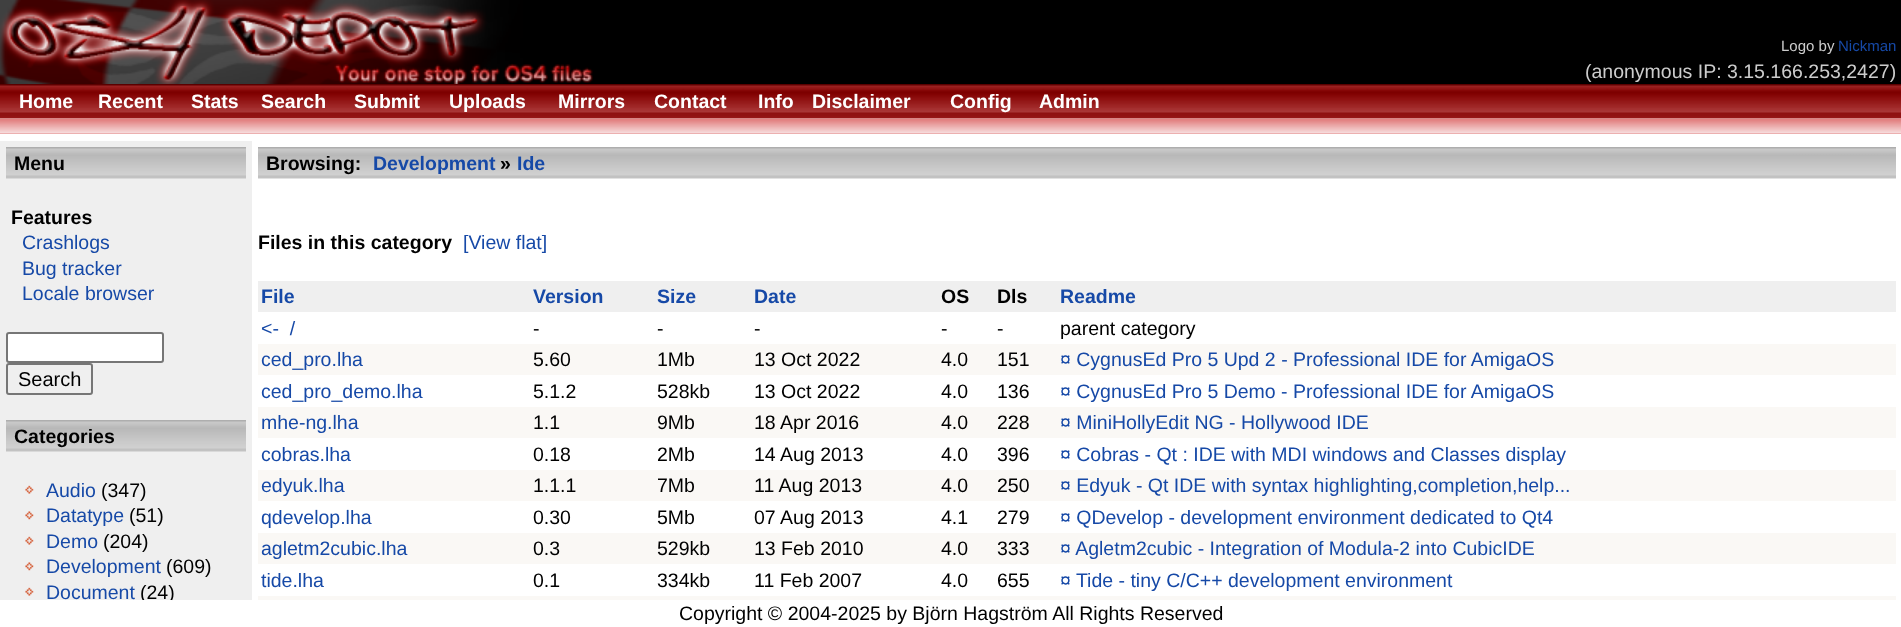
<svg xmlns="http://www.w3.org/2000/svg" width="1901" height="627">
	<rect width="100%" height="100%" fill="#FFFFFF" />
	<rect x="593" y="0" width="1308" height="84" fill="#000000" />
	<image x="0" y="0" width="593" height="84" href="assets/img1.png" />
	<text x="1781" y="51" font-family="Liberation Sans" font-size="15" fill="#CCCCCC">Logo by</text>
	<text x="1838" y="51" font-family="Liberation Sans" font-size="15" fill="#1649A7">Nickman</text>
	<text x="1585" y="78" font-family="Liberation Sans" font-size="19.5" fill="#CCCCCC">(anonymous IP: 3.15.166.253,2427)</text>
	<image x="0" y="84" width="1901" height="35" href="assets/img2.png" />
	<g font-family="Liberation Sans" font-size="19.5" font-weight="700" fill="#FFFFFF">
		<text x="19" y="108">Home</text>
		<text x="98" y="108">Recent</text>
		<text x="191" y="108">Stats</text>
		<text x="261" y="108">Search</text>
		<text x="354" y="108">Submit</text>
		<text x="449" y="108">Uploads</text>
		<text x="558" y="108">Mirrors</text>
		<text x="654" y="108">Contact</text>
		<text x="758" y="108">Info</text>
		<text x="812" y="108">Disclaimer</text>
		<text x="950" y="108">Config</text>
		<text x="1039" y="108">Admin</text>
	</g>
	<rect x="0" y="133" width="1901" height="1" fill="#E18080" />
	<image x="0" y="118" width="1901" height="16" href="assets/img3.png" />
	<rect x="0" y="141" width="252" height="459" fill="#EFEFEF" />
	<image x="6" y="147" width="240" height="32" href="assets/img4.png" />
	<g font-family="Liberation Sans" font-size="19.5" font-weight="700" fill="#000000">
		<text x="14" y="170">Menu</text>
		<text x="11" y="224">Features</text>
	</g>
	<g font-family="Liberation Sans" font-size="19.5" fill="#1649A7">
		<text x="22" y="249">Crashlogs</text>
		<text x="22" y="275">Bug tracker</text>
		<text x="22" y="300">Locale browser</text>
	</g>
	<rect x="7" y="333" width="156" height="29" rx="2" fill="#FFFFFF" stroke="#767676" stroke-width="2" />
	<rect x="7" y="364" width="85" height="30" rx="2" fill="none" stroke="#767676" stroke-width="2" />
	<text x="18" y="386" font-family="Liberation Sans" font-size="20" fill="#000000">Search</text>
	<image x="6" y="420" width="240" height="32" href="assets/img5.png" />
	<text x="14" y="443" font-family="Liberation Sans" font-size="19.5" font-weight="700" fill="#000000">Categories</text>
	<image x="25" y="485" width="9" height="9" href="assets/img6.png" />
	<text x="46" y="497" font-family="Liberation Sans" font-size="19.5" fill="#1649A7">Audio</text>
	<text x="101" y="497" font-family="Liberation Sans" font-size="19.5" fill="#000000">(347)</text>
	<image x="25" y="511" width="9" height="9" href="assets/img7.png" />
	<text x="46" y="522" font-family="Liberation Sans" font-size="19.5" fill="#1649A7">Datatype</text>
	<text x="129" y="522" font-family="Liberation Sans" font-size="19.5" fill="#000000">(51)</text>
	<image x="25" y="536" width="9" height="9" href="assets/img6.png" />
	<text x="46" y="548" font-family="Liberation Sans" font-size="19.5" fill="#1649A7">Demo</text>
	<text x="103" y="548" font-family="Liberation Sans" font-size="19.5" fill="#000000">(204)</text>
	<image x="25" y="562" width="9" height="9" href="assets/img7.png" />
	<text x="46" y="573" font-family="Liberation Sans" font-size="19.5" fill="#1649A7">Development</text>
	<text x="166" y="573" font-family="Liberation Sans" font-size="19.5" fill="#000000">(609)</text>
	<image x="25" y="587" width="9" height="9" href="assets/img6.png" />
	<text x="46" y="599" font-family="Liberation Sans" font-size="19.5" fill="#1649A7">Document</text>
	<text x="140" y="599" font-family="Liberation Sans" font-size="19.5" fill="#000000">(24)</text>
	<image x="258" y="147" width="1638" height="32" href="assets/img8.png" />
	<text x="266" y="170" font-family="Liberation Sans" font-size="19.5" font-weight="700" fill="#000000">Browsing:</text>
	<text x="373" y="170" font-family="Liberation Sans" font-size="19.5" font-weight="700" fill="#1649A7">Development</text>
	<text x="500" y="170" font-family="Liberation Sans" font-size="19.5" font-weight="700" fill="#000000">»</text>
	<text x="517" y="170" font-family="Liberation Sans" font-size="19.5" font-weight="700" fill="#1649A7">Ide</text>
	<text x="258" y="249" font-family="Liberation Sans" font-size="19.5" font-weight="700" fill="#000000">Files in this category</text>
	<text x="463" y="249" font-family="Liberation Sans" font-size="19.5" fill="#1649A7">[View flat]</text>
	<rect x="258" y="281" width="1638" height="31" fill="#EFEFEF" />
	<g font-family="Liberation Sans" font-size="19.5" font-weight="700" fill="#1649A7">
		<text x="261" y="303">File</text>
		<text x="533" y="303">Version</text>
		<text x="657" y="303">Size</text>
		<text x="754" y="303">Date</text>
	</g>
	<g font-family="Liberation Sans" font-size="19.5" font-weight="700" fill="#000000">
		<text x="941" y="303">OS</text>
		<text x="997" y="303">Dls</text>
	</g>
	<text x="1060" y="303" font-family="Liberation Sans" font-size="19.5" font-weight="700" fill="#1649A7">Readme</text>
	<text x="261" y="335" font-family="Liberation Sans" font-size="19.5" fill="#1649A7" xml:space="preserve">&lt;-  /</text>
	<g font-family="Liberation Sans" font-size="19.5" fill="#000000">
		<text x="533" y="335">-</text>
		<text x="657" y="335">-</text>
		<text x="754" y="335">-</text>
		<text x="941" y="335">-</text>
		<text x="997" y="335">-</text>
		<text x="1060" y="335">parent category</text>
	</g>
	<rect x="258" y="344" width="1638" height="31" fill="#FAF8F5" />
	<text x="261" y="366" font-family="Liberation Sans" font-size="19.5" fill="#1649A7">ced_pro.lha</text>
	<g font-family="Liberation Sans" font-size="19.5" fill="#000000">
		<text x="533" y="366">5.60</text>
		<text x="657" y="366">1Mb</text>
		<text x="754" y="366">13 Oct 2022</text>
		<text x="941" y="366">4.0</text>
		<text x="997" y="366">151</text>
	</g>
	<g font-family="Liberation Sans" font-size="19.5" fill="#1649A7">
		<text x="1060" y="366">¤ CygnusEd Pro 5 Upd 2 - Professional IDE for AmigaOS</text>
		<text x="261" y="398">ced_pro_demo.lha</text>
	</g>
	<g font-family="Liberation Sans" font-size="19.5" fill="#000000">
		<text x="533" y="398">5.1.2</text>
		<text x="657" y="398">528kb</text>
		<text x="754" y="398">13 Oct 2022</text>
		<text x="941" y="398">4.0</text>
		<text x="997" y="398">136</text>
	</g>
	<text x="1060" y="398" font-family="Liberation Sans" font-size="19.5" fill="#1649A7">¤ CygnusEd Pro 5 Demo - Professional IDE for AmigaOS</text>
	<rect x="258" y="407" width="1638" height="31" fill="#FAF8F5" />
	<text x="261" y="429" font-family="Liberation Sans" font-size="19.5" fill="#1649A7">mhe-ng.lha</text>
	<g font-family="Liberation Sans" font-size="19.5" fill="#000000">
		<text x="533" y="429">1.1</text>
		<text x="657" y="429">9Mb</text>
		<text x="754" y="429">18 Apr 2016</text>
		<text x="941" y="429">4.0</text>
		<text x="997" y="429">228</text>
	</g>
	<g font-family="Liberation Sans" font-size="19.5" fill="#1649A7">
		<text x="1060" y="429">¤ MiniHollyEdit NG - Hollywood IDE</text>
		<text x="261" y="461">cobras.lha</text>
	</g>
	<g font-family="Liberation Sans" font-size="19.5" fill="#000000">
		<text x="533" y="461">0.18</text>
		<text x="657" y="461">2Mb</text>
		<text x="754" y="461">14 Aug 2013</text>
		<text x="941" y="461">4.0</text>
		<text x="997" y="461">396</text>
	</g>
	<text x="1060" y="461" font-family="Liberation Sans" font-size="19.5" fill="#1649A7">¤ Cobras - Qt : IDE with MDI windows and Classes display</text>
	<rect x="258" y="470" width="1638" height="31" fill="#FAF8F5" />
	<text x="261" y="492" font-family="Liberation Sans" font-size="19.5" fill="#1649A7">edyuk.lha</text>
	<g font-family="Liberation Sans" font-size="19.5" fill="#000000">
		<text x="533" y="492">1.1.1</text>
		<text x="657" y="492">7Mb</text>
		<text x="754" y="492">11 Aug 2013</text>
		<text x="941" y="492">4.0</text>
		<text x="997" y="492">250</text>
	</g>
	<g font-family="Liberation Sans" font-size="19.5" fill="#1649A7">
		<text x="1060" y="492">¤ Edyuk - Qt IDE with syntax highlighting,completion,help...</text>
		<text x="261" y="524">qdevelop.lha</text>
	</g>
	<g font-family="Liberation Sans" font-size="19.5" fill="#000000">
		<text x="533" y="524">0.30</text>
		<text x="657" y="524">5Mb</text>
		<text x="754" y="524">07 Aug 2013</text>
		<text x="941" y="524">4.1</text>
		<text x="997" y="524">279</text>
	</g>
	<text x="1060" y="524" font-family="Liberation Sans" font-size="19.5" fill="#1649A7">¤ QDevelop - development environment dedicated to Qt4</text>
	<rect x="258" y="533" width="1638" height="31" fill="#FAF8F5" />
	<text x="261" y="555" font-family="Liberation Sans" font-size="19.5" fill="#1649A7">agletm2cubic.lha</text>
	<g font-family="Liberation Sans" font-size="19.5" fill="#000000">
		<text x="533" y="555">0.3</text>
		<text x="657" y="555">529kb</text>
		<text x="754" y="555">13 Feb 2010</text>
		<text x="941" y="555">4.0</text>
		<text x="997" y="555">333</text>
	</g>
	<g font-family="Liberation Sans" font-size="19.5" fill="#1649A7">
		<text x="1060" y="555">¤ Agletm2cubic - Integration of Modula-2 into CubicIDE</text>
		<text x="261" y="587">tide.lha</text>
	</g>
	<g font-family="Liberation Sans" font-size="19.5" fill="#000000">
		<text x="533" y="587">0.1</text>
		<text x="657" y="587">334kb</text>
		<text x="754" y="587">11 Feb 2007</text>
		<text x="941" y="587">4.0</text>
		<text x="997" y="587">655</text>
	</g>
	<text x="1060" y="587" font-family="Liberation Sans" font-size="19.5" fill="#1649A7">¤ Tide - tiny C/C++ development environment</text>
	<rect x="258" y="596" width="1638" height="4" fill="#FAF8F5" />
	<rect x="142" y="600" width="30" height="4" fill="#FFFFFF" />
	<text x="679" y="620" font-family="Liberation Sans" font-size="19.5" fill="#000000">Copyright © 2004-2025 by Björn Hagström All Rights Reserved</text>
</svg>
